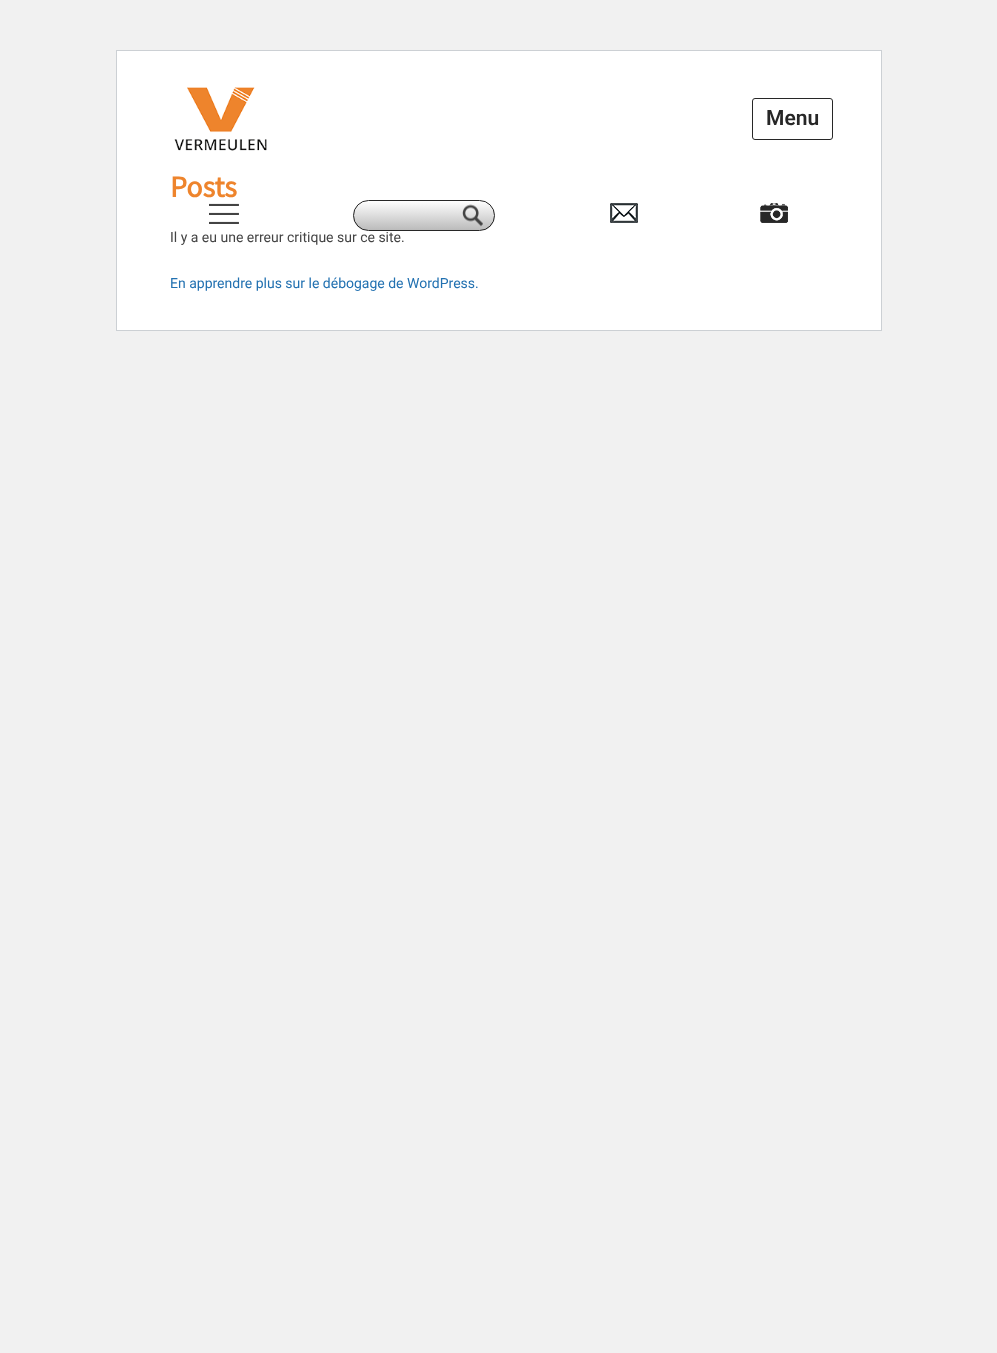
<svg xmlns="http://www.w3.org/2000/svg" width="997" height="1353">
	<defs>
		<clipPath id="clip1"><rect x="353" y="200" width="142" height="31" rx="15.5" /></clipPath>
		<linearGradient id="g1" gradientUnits="userSpaceOnUse" x1="424" y1="230" x2="424" y2="201"><stop offset="0" stop-color="#BBBBBB" /><stop offset="1" stop-color="#FFFFFF" /></linearGradient>
	</defs>
	<rect width="100%" height="100%" fill="#F1F1F1" />
	<rect x="116.5" y="50.5" width="765" height="280" fill="#FFFFFF" stroke="#CCD0D4" />
	<image x="174" y="87" width="93" height="64" href="assets/img1.png" />
	<rect x="752.5" y="98.5" width="80" height="41" rx="2.5" fill="none" stroke="#272727" />
	<text x="766" y="125" font-family="Roboto" font-size="21" font-weight="600" fill="#272727">Menu</text>
	<image x="209" y="203" width="30" height="21" href="assets/img2.png" />
	<g clip-path="url(#clip1)">
		<rect x="353" y="201" width="142" height="29" fill="url(#g1)" />
	</g>
	<rect x="353.5" y="200.5" width="141" height="30" rx="15" fill="none" stroke="#272727" />
	<image x="462" y="204" width="21" height="23" href="assets/img3.png" />
	<image x="610" y="203" width="28" height="20" href="assets/img4.png" />
	<image x="760" y="203" width="28" height="20" href="assets/img5.png" />
	<text x="170" y="197" font-family="Source Sans Pro" font-size="30" font-weight="700" fill="#EE842C">Posts</text>
	<text x="170" y="242" font-family="Roboto" font-size="14" fill="#444444">Il y a eu une erreur critique sur ce site.</text>
	<text x="170" y="288" font-family="Roboto" font-size="14" fill="#2271B1">En apprendre plus sur le débogage de WordPress.</text>
</svg>
